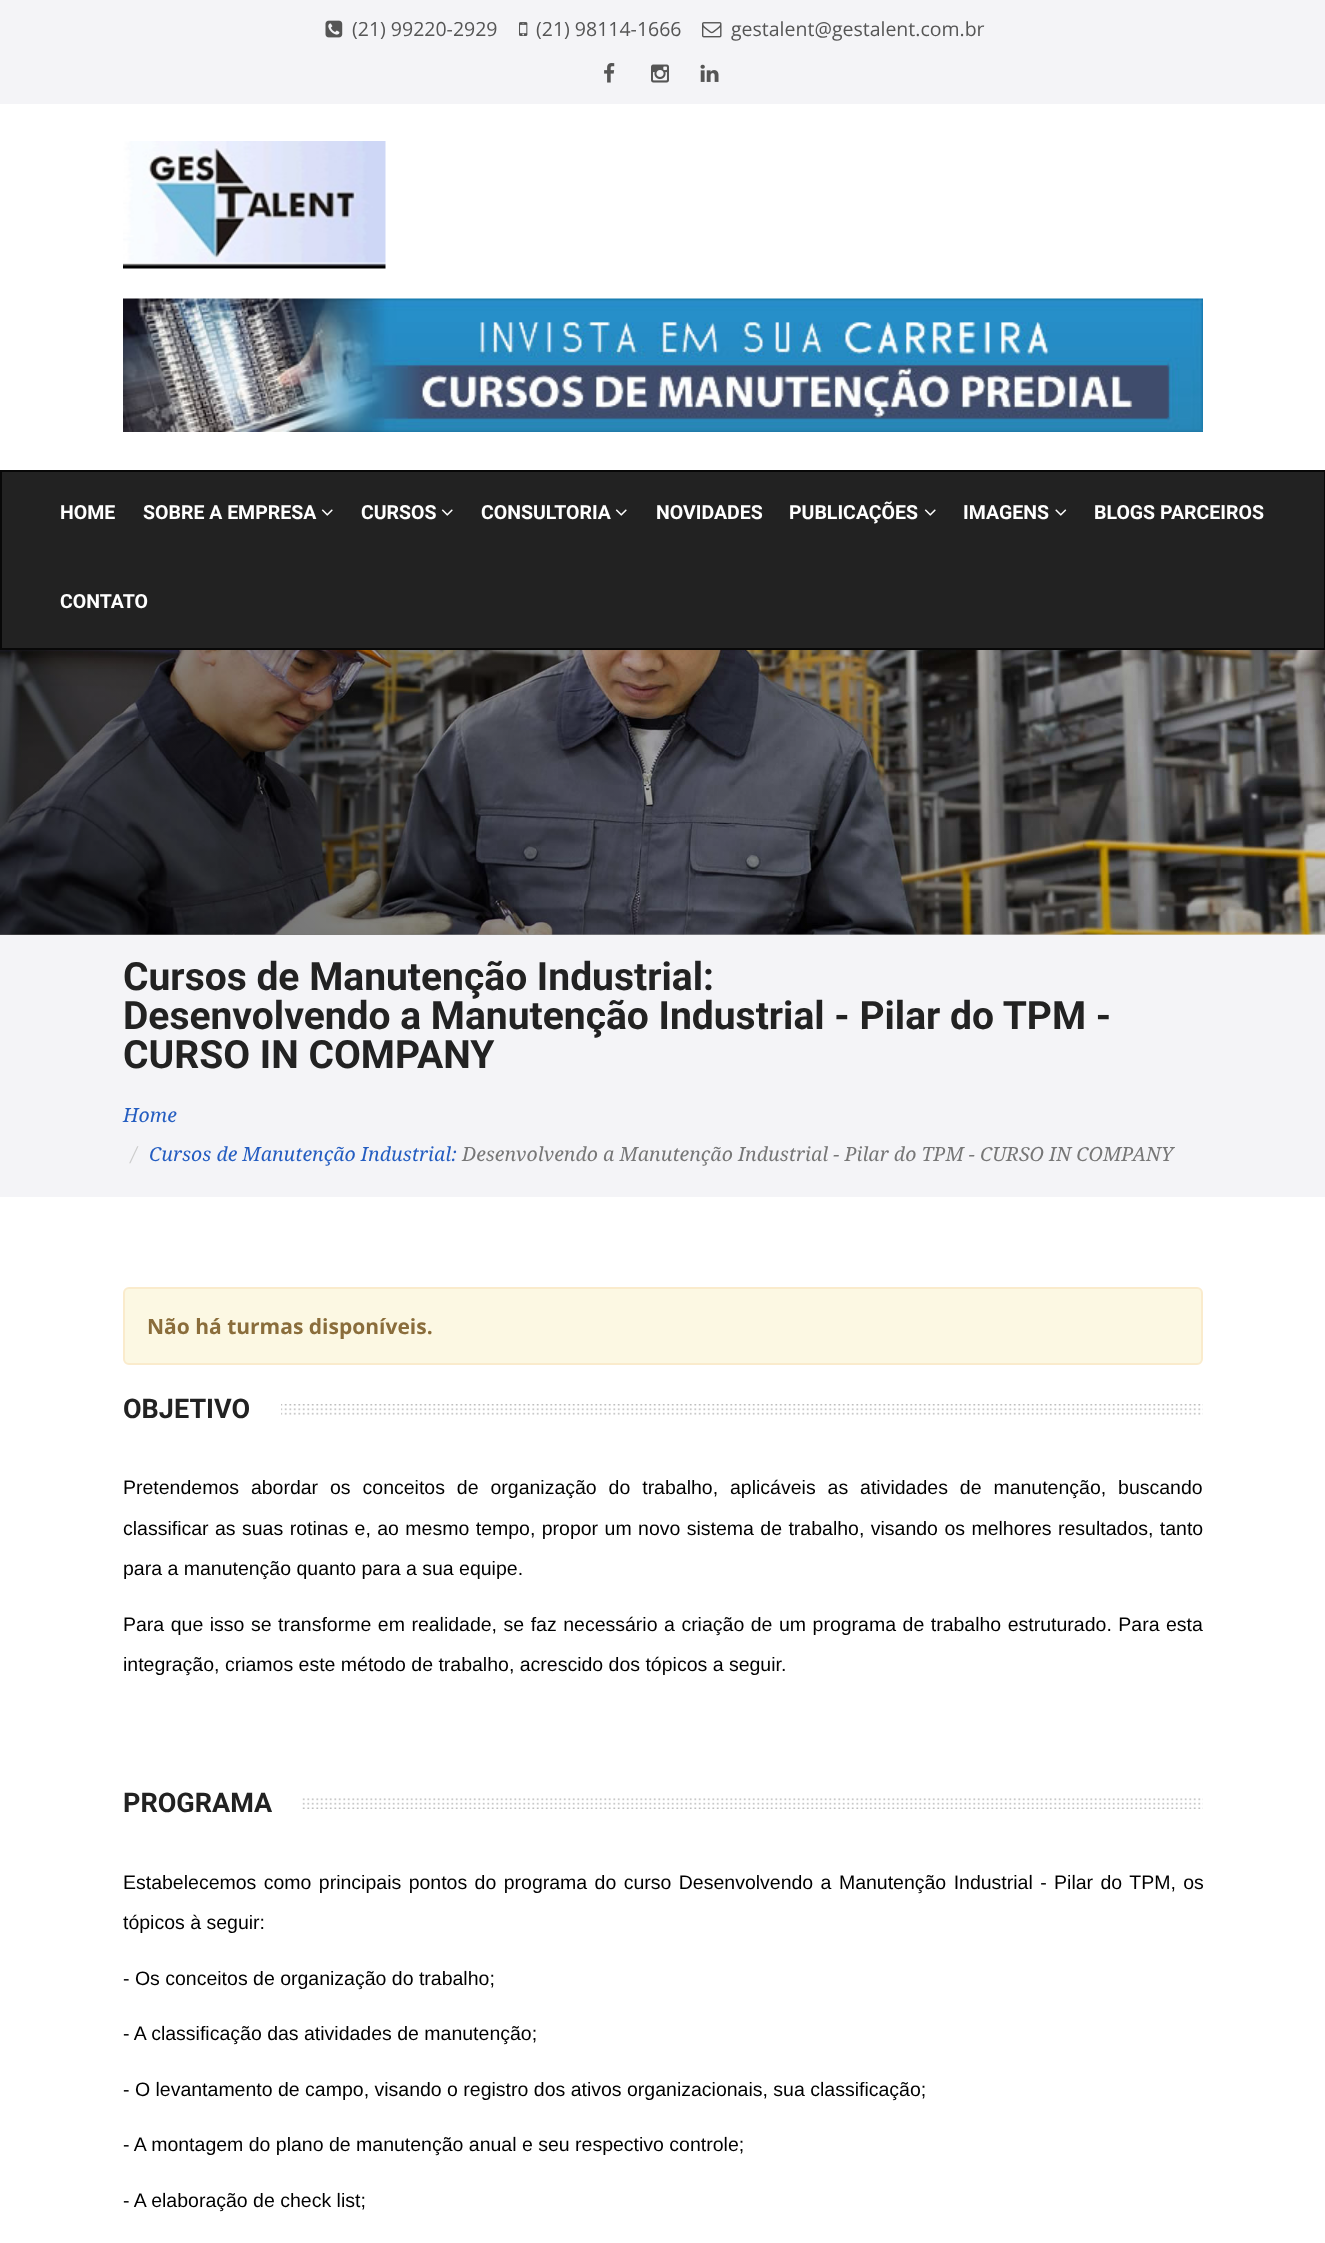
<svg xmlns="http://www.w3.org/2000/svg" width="1325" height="2243">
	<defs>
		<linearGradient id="g1" gradientUnits="userSpaceOnUse" x1="260" y1="1195" x2="1066" y2="389"><stop offset="0" stop-color="#000000" stop-opacity="0.65" /><stop offset="1" stop-color="#000000" stop-opacity="0" /></linearGradient>
	</defs>
	<rect width="100%" height="100%" fill="#FFFFFF" />
	<rect x="0" y="0" width="1325" height="104" fill="#F4F4F7" />
	<image x="325" y="20" width="18" height="18" href="assets/img1.png" />
	<text x="352" y="36" font-family="Open Sans" font-size="19.5" fill="#555555">(21) 99220-2929</text>
	<image x="519" y="22" width="9" height="14" href="assets/img2.png" />
	<text x="536" y="36" font-family="Open Sans" font-size="19.5" fill="#555555">(21) 98114-1666</text>
	<image x="702" y="22" width="20" height="16" href="assets/img3.png" />
	<text x="731" y="36" font-family="Open Sans" font-size="19.5" fill="#555555">gestalent@gestalent.com.br</text>
	<image x="604" y="63" width="11" height="20" href="assets/img4.png" />
	<image x="651" y="64" width="18" height="19" href="assets/img5.png" />
	<image x="700" y="64" width="19" height="18" href="assets/img6.png" />
	<image x="123" y="141" width="263" height="128" href="assets/img7.png" />
	<image x="123" y="298" width="1080" height="134" href="assets/img8.png" />
	<rect x="1" y="471" width="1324" height="178" fill="#222222" stroke="#080808" stroke-width="2" />
	<g font-family="Roboto" font-size="19.5" font-weight="700" fill="#FFFFFF">
		<text x="60" y="519">HOME</text>
		<text x="143" y="519">SOBRE A EMPRESA</text>
	</g>
	<image x="321" y="509" width="12" height="7" href="assets/img9.png" />
	<text x="361" y="519" font-family="Roboto" font-size="19.5" font-weight="700" fill="#FFFFFF">CURSOS</text>
	<image x="441" y="509" width="12" height="7" href="assets/img9.png" />
	<text x="481" y="519" font-family="Roboto" font-size="19.5" font-weight="700" fill="#FFFFFF">CONSULTORIA</text>
	<image x="615" y="509" width="12" height="7" href="assets/img9.png" />
	<g font-family="Roboto" font-size="19.5" font-weight="700" fill="#FFFFFF">
		<text x="656" y="519">NOVIDADES</text>
		<text x="789" y="519">PUBLICAÇÕES</text>
	</g>
	<image x="924" y="509" width="12" height="7" href="assets/img9.png" />
	<text x="963" y="519" font-family="Roboto" font-size="19.5" font-weight="700" fill="#FFFFFF">IMAGENS</text>
	<image x="1055" y="509" width="12" height="7" href="assets/img10.png" />
	<g font-family="Roboto" font-size="19.5" font-weight="700" fill="#FFFFFF">
		<text x="1094" y="519">BLOGS PARCEIROS</text>
		<text x="60" y="608">CONTATO</text>
	</g>
	<image x="0" y="650" width="1325" height="285" href="assets/img11.png" />
	<rect x="0" y="650" width="1325" height="285" fill="url(#g1)" />
	<rect x="0" y="935" width="1325" height="262" fill="#F4F4F7" />
	<g font-family="Roboto" font-size="39" font-weight="700" fill="#222222">
		<text x="123" y="990">Cursos de Manutenção Industrial:</text>
		<text x="123" y="1029">Desenvolvendo a Manutenção Industrial - Pilar do TPM -</text>
		<text x="123" y="1068">CURSO IN COMPANY</text>
	</g>
	<text x="123" y="1122" font-family="Droid Serif" font-size="19.5" font-style="italic" fill="#245DC1">Home</text>
	<text x="131" y="1161" font-family="Droid Serif" font-size="19.5" font-style="italic" fill="#CCCCCC">/</text>
	<text x="149" y="1161" font-family="Droid Serif" font-size="19.5" font-style="italic" fill="#245DC1">Cursos de Manutenção Industrial:</text>
	<text x="462" y="1161" font-family="Droid Serif" font-size="19.5" font-style="italic" fill="#777777">Desenvolvendo a Manutenção Industrial - Pilar do TPM - CURSO IN COMPANY</text>
	<rect x="124" y="1288" width="1078" height="76" rx="5" fill="#FCF8E3" stroke="#FAEBCC" stroke-width="2" />
	<text x="147" y="1334" font-family="Open Sans" font-size="21" font-weight="700" fill="#8A6D3B">Não há turmas disponíveis.</text>
	<image x="281" y="1404" width="922" height="11" href="assets/img12.png" />
	<text x="123" y="1418" font-family="Roboto" font-size="27" font-weight="700" fill="#222222">OBJETIVO</text>
	<g font-family="Liberation Sans" font-size="19.5" fill="#000000">
		<text x="123" y="1494" word-spacing="6.5">Pretendemos abordar os conceitos de organização do trabalho, aplicáveis as atividades de manutenção, buscando</text>
		<text x="123" y="1535" word-spacing="1">classificar as suas rotinas e, ao mesmo tempo, propor um novo sistema de trabalho, visando os melhores resultados, tanto</text>
		<text x="123" y="1575">para a manutenção quanto para a sua equipe.</text>
		<text x="123" y="1631" word-spacing="1.1">Para que isso se transforme em realidade, se faz necessário a criação de um programa de trabalho estruturado. Para esta</text>
		<text x="123" y="1671">integração, criamos este método de trabalho, acrescido dos tópicos a seguir.</text>
	</g>
	<image x="302" y="1798" width="901" height="11" href="assets/img13.png" />
	<text x="123" y="1812" font-family="Roboto" font-size="27" font-weight="700" fill="#222222">PROGRAMA</text>
	<g font-family="Liberation Sans" font-size="19.5" fill="#000000">
		<text x="123" y="1889" word-spacing="2">Estabelecemos como principais pontos do programa do curso Desenvolvendo a Manutenção Industrial - Pilar do TPM, os</text>
		<text x="123" y="1929">tópicos à seguir:</text>
		<text x="123" y="1985">- Os conceitos de organização do trabalho;</text>
		<text x="123" y="2040">- A classificação das atividades de manutenção;</text>
		<text x="123" y="2096">- O levantamento de campo, visando o registro dos ativos organizacionais, sua classificação;</text>
		<text x="123" y="2151">- A montagem do plano de manutenção anual e seu respectivo controle;</text>
		<text x="123" y="2207">- A elaboração de check list;</text>
	</g>
</svg>
